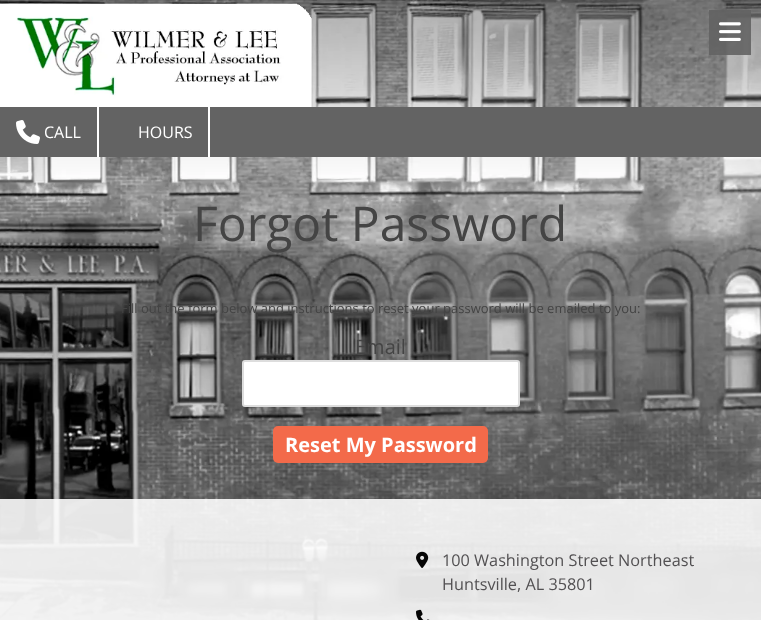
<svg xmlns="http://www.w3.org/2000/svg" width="761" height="620">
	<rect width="100%" height="100%" fill="#FFFFFF" />
	<image x="0" y="0" width="761" height="620" href="assets/img1.png" />
	<image x="0" y="3" width="312" height="104" href="assets/img2.png" />
	<rect x="709" y="10" width="42" height="45" fill="#636363" fill-opacity="0.9" />
	<image x="719" y="22" width="22" height="19" href="assets/img3.png" />
	<rect x="0" y="107" width="761" height="50" fill="#636363" />
	<rect x="97" y="107" width="2" height="50" fill="#FFFFFF" />
	<image x="16" y="120" width="24" height="24" href="assets/img4.png" />
	<text x="44" y="138" font-family="Open Sans" font-size="16" fill="#FFFFFF">CALL</text>
	<rect x="208" y="107" width="2" height="50" fill="#FFFFFF" />
	<text x="138" y="138" font-family="Open Sans" font-size="16" fill="#FFFFFF">HOURS</text>
	<text x="193" y="241" font-family="Open Sans" font-size="48" fill="#444444">Forgot Password</text>
	<text x="121" y="313" font-family="Open Sans" font-size="13" fill="#444444">Fill out the form below and instructions to reset your password will be emailed to you:</text>
	<text x="355" y="354" font-family="Open Sans" font-size="20" fill="#444444">Email</text>
	<rect x="243" y="361" width="276" height="45" rx="2" fill="#FFFFFF" stroke="#DDDDDD" stroke-width="2" />
	<rect x="273" y="426" width="215" height="37" rx="5" fill="#F36A4A" />
	<text x="285" y="452" font-family="Open Sans" font-size="20" font-weight="700" fill="#FFFFFF">Reset My Password</text>
	<rect x="0" y="499" width="761" height="121" fill="#FFFFFF" fill-opacity="0.89" />
	<image x="416" y="551" width="13" height="17" href="assets/img5.png" />
	<g font-family="Open Sans" font-size="16.25" fill="#525052">
		<text x="442" y="566">100 Washington Street Northeast</text>
		<text x="442" y="590">Huntsville, AL 35801</text>
	</g>
	<image x="416" y="609" width="14" height="11" href="assets/img6.png" />
</svg>
